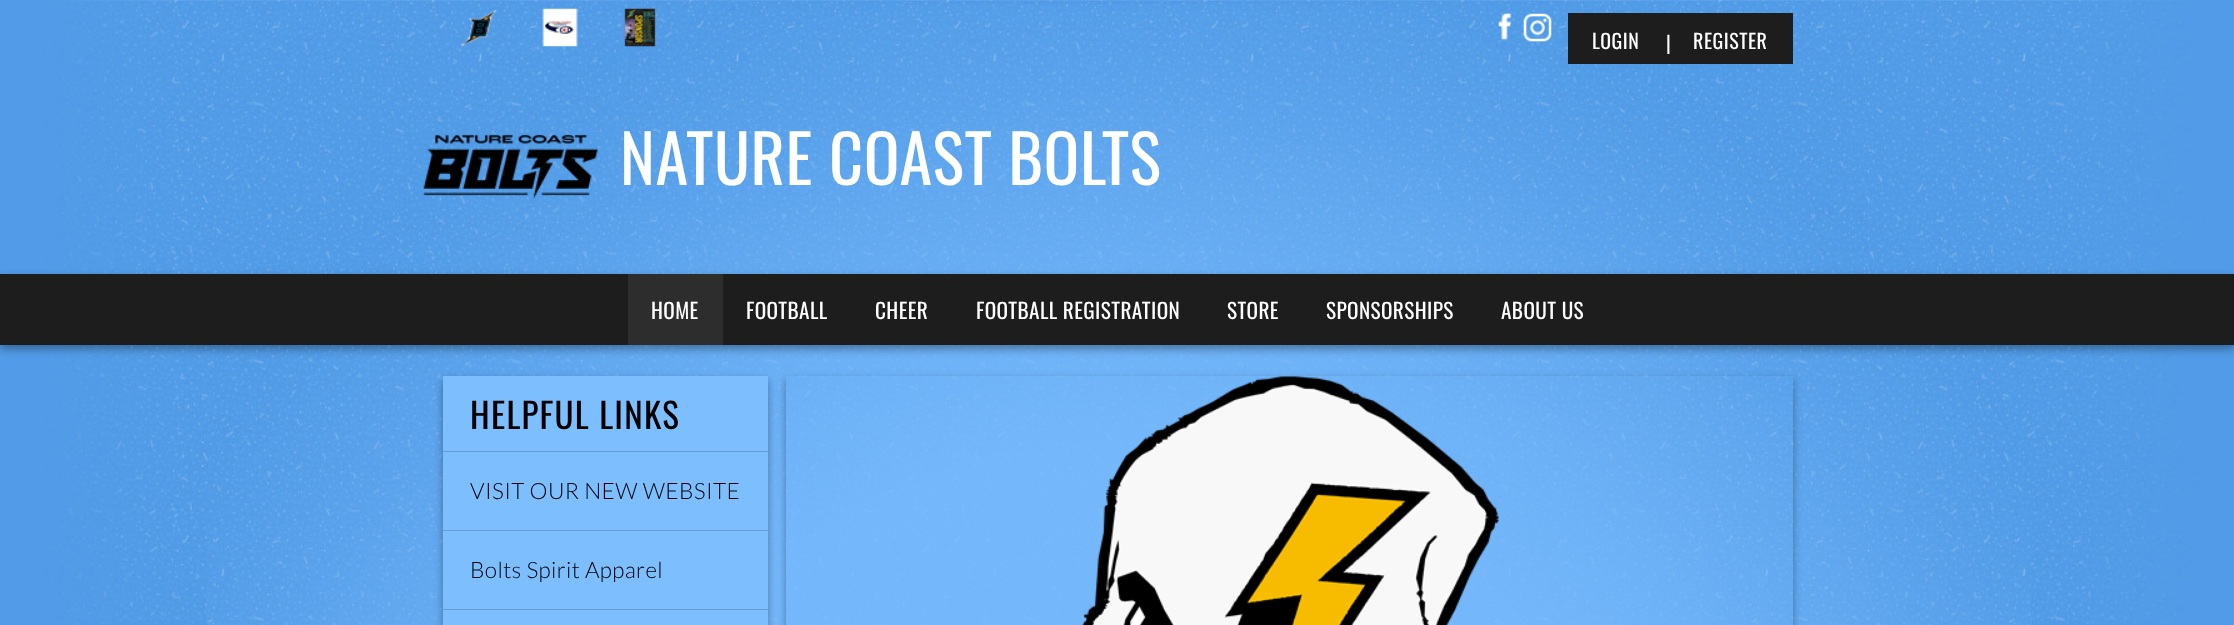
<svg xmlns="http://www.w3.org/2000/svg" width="2234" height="625">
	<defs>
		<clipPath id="clip1"><path d="M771 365H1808V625H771ZM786 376H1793V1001H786Z" clip-rule="evenodd" /></clipPath>
	</defs>
	<rect width="100%" height="100%" fill="#FFFFFF" />
	<image x="0" y="0" width="2234" height="625" href="assets/img1.png" />
	<image x="206" y="4" width="1826" height="621" href="assets/img2.png" />
	<image x="460" y="9" width="38" height="38" href="assets/img3.png" />
	<image x="542" y="8" width="36" height="39" href="assets/img4.png" />
	<image x="624" y="8" width="32" height="39" href="assets/img5.png" />
	<image x="1498" y="12" width="14" height="29" href="assets/img6.png" />
	<image x="1523" y="13" width="29" height="29" href="assets/img7.png" />
	<rect x="1568" y="13" width="225" height="51" fill="#1D1D1D" />
	<g font-family="Oswald" font-size="20" letter-spacing="0.5" fill="#FFFFFF">
		<text x="1592" y="49">LOGIN</text>
		<text x="1666" y="51">|</text>
		<text x="1693" y="49">REGISTER</text>
	</g>
	<image x="423" y="134" width="175" height="65" href="assets/img8.png" />
	<text x="620" y="185" font-family="Oswald" font-size="66.25" letter-spacing="0.6" fill="#FFFFFF">NATURE COAST BOLTS</text>
	<rect x="0" y="278" width="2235" height="71" fill="#000000" fill-opacity="0.35" filter="blur(4.5px)" />
	<rect x="0" y="274" width="2234" height="71" fill="#1D1D1D" />
	<rect x="628" y="274" width="95" height="71" fill="#2D2D2D" />
	<g font-family="Oswald" font-size="21.25" letter-spacing="0.4" fill="#FFFFFF">
		<text x="651" y="319">HOME</text>
		<text x="746" y="319">FOOTBALL</text>
		<text x="875" y="319">CHEER</text>
		<text x="976" y="319">FOOTBALL REGISTRATION</text>
		<text x="1227" y="319">STORE</text>
		<text x="1326" y="319">SPONSORSHIPS</text>
		<text x="1501" y="319">ABOUT US</text>
	</g>
	<rect x="443" y="380" width="325" height="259" fill="#000000" fill-opacity="0.35" filter="blur(4.5px)" />
	<rect x="443" y="376" width="325" height="249" fill="#7DBEFF" />
	<text x="470" y="429" font-family="Oswald" font-size="35" letter-spacing="1.25" fill="#000000">HELPFUL LINKS</text>
	<rect x="443" y="451" width="325" height="1" fill="#679CD1" />
	<text x="470" y="499" font-family="Lato" font-size="22.5" font-weight="300" letter-spacing="0.4" fill="#000000">VISIT OUR NEW WEBSITE</text>
	<rect x="443" y="530" width="325" height="1" fill="#679CD1" />
	<text x="470" y="578" font-family="Lato" font-size="22.5" font-weight="300" letter-spacing="0.4" fill="#000000">Bolts Spirit Apparel</text>
	<rect x="443" y="609" width="325" height="1" fill="#679CD1" />
	<g clip-path="url(#clip1)">
		<rect x="786" y="380" width="1007" height="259" fill="#000000" fill-opacity="0.35" filter="blur(4.5px)" />
	</g>
	<image x="1082" y="376" width="418" height="249" href="assets/img9.png" />
</svg>
